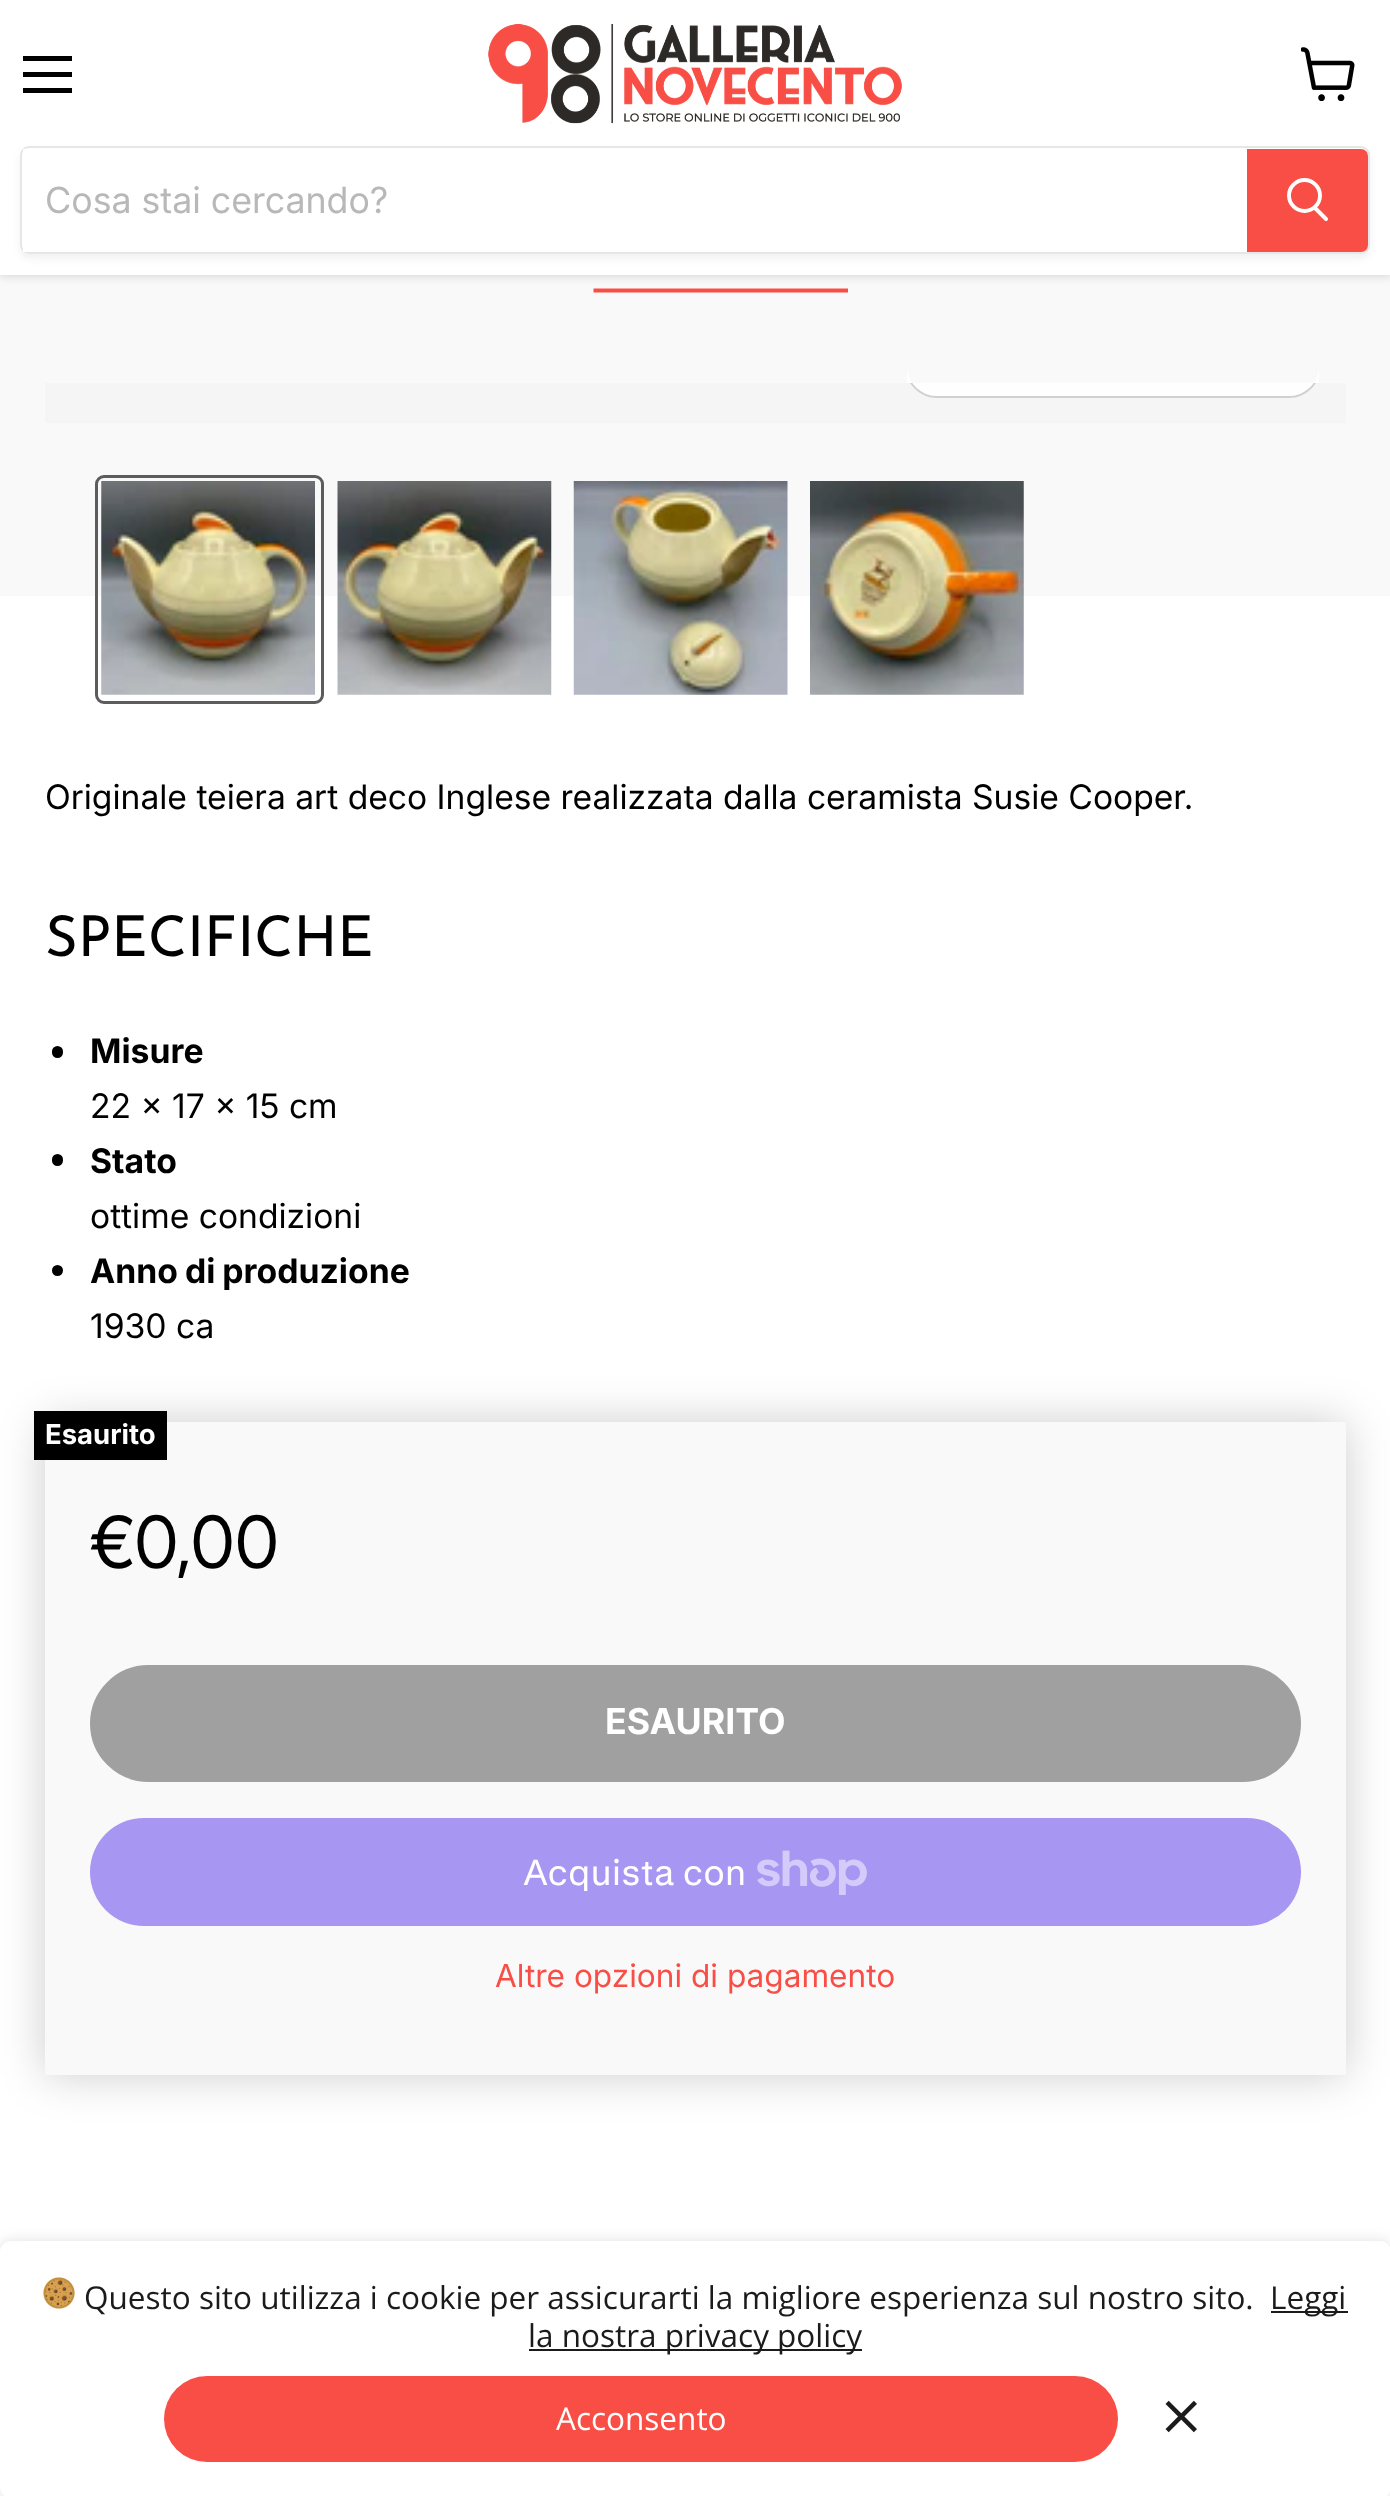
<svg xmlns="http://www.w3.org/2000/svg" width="1390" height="2496">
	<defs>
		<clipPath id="clip1"><rect x="542" y="248" width="306" height="45" /></clipPath>
		<clipPath id="clip2"><path d="M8 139H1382V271H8ZM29 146H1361C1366 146 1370 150 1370 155V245C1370 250 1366 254 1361 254H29C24 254 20 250 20 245V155C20 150 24 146 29 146Z" clip-rule="evenodd" /></clipPath>
		<clipPath id="clip3"><rect x="45" y="383" width="1301" height="40" /></clipPath>
		<clipPath id="clip4"><path d="M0 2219H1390V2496H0ZM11 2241H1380C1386 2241 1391 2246 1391 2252V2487C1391 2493 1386 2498 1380 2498H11C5 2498 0 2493 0 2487V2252C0 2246 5 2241 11 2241Z" clip-rule="evenodd" /></clipPath>
	</defs>
	<rect width="100%" height="100%" fill="#FFFFFF" />
	<rect x="0" y="275" width="1390" height="321" fill="#FAF9F9" />
	<g clip-path="url(#clip1)">
		<path d="M593.5 290.5H849" fill="none" stroke="#F94E46" stroke-width="4.1" />
	</g>
	<rect x="0" y="2" width="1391" height="275" fill="#808080" fill-opacity="0.25" filter="blur(4.5px)" />
	<rect x="0" y="0" width="1390" height="275" fill="#FFFFFF" />
	<rect x="23" y="56" width="49" height="5" fill="#000000" />
	<rect x="23" y="72" width="49" height="5" fill="#000000" />
	<rect x="23" y="88" width="49" height="5" fill="#000000" />
	<image x="1301" y="47" width="54" height="54" href="assets/img1.png" />
	<image x="488" y="24" width="414" height="100" href="assets/img2.png" />
	<g clip-path="url(#clip2)">
		<rect x="20" y="151" width="1350" height="108" rx="9" fill="#808080" fill-opacity="0.11" filter="blur(3.5px)" />
	</g>
	<rect x="21" y="147" width="1348" height="106" rx="8" fill="none" stroke="#808080" stroke-opacity="0.2" stroke-width="2" />
	<rect x="23" y="149" width="5" height="103" fill="#FFFFFF" />
	<text x="45" y="213" font-family="'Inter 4'" font-size="36" fill="#B8B8B8">Cosa stai cercando?</text>
	<path d="M1248 150H1361C1364.5 150 1367 152.5 1367 156V245C1367 248.5 1364.5 251 1361 251H1248Z" fill="#F94E46" stroke="#F94E46" stroke-width="2" />
	<path d="M1326 219L1315 208" fill="none" stroke="#FFFFFF" stroke-width="3.9" stroke-linecap="round" />
	<circle cx="1304.5" cy="195.5" r="15.5" fill="none" stroke="#FFFFFF" stroke-width="3.9" />
	<rect x="45" y="383" width="1301" height="40" fill="#F5F5F5" />
	<g clip-path="url(#clip3)">
		<rect x="906" y="334" width="414" height="63" rx="31.5" fill="none" stroke="#D0D0D0" stroke-width="2" />
	</g>
	<path d="M907 383H1319V365.5C1319 382.5 1305.5 396 1288.5 396H937.5C920.5 396 907 382.5 907 365.5Z" fill="#FFFFFF" fill-opacity="0.9" />
	<rect x="96.5" y="476.5" width="226" height="226" rx="7.5" fill="none" stroke="#5C5C5C" stroke-width="3" />
	<image x="101" y="481" width="214" height="214" href="assets/img3.png" />
	<image x="337" y="481" width="215" height="214" href="assets/img4.png" />
	<image x="573" y="481" width="215" height="214" href="assets/img5.png" />
	<image x="810" y="481" width="214" height="214" href="assets/img6.png" />
	<text x="45" y="809" font-family="Inter" font-size="33.75" fill="#000000">Originale teiera art deco Inglese realizzata dalla ceramista Susie Cooper.</text>
	<text x="45" y="956" font-family="Josefin Sans" font-size="56.25" fill="#000000">SPECIFICHE</text>
	<rect x="52" y="1046" width="11" height="12" rx="5.5" fill="#000000" />
	<text x="90" y="1063" font-family="Inter" font-size="33.75" font-weight="700" fill="#000000">Misure</text>
	<text x="90" y="1118" font-family="Inter" font-size="33.75" fill="#000000">22 x 17 x 15 cm</text>
	<rect x="52" y="1154" width="11" height="12" rx="5.5" fill="#000000" />
	<text x="90" y="1173" font-family="Inter" font-size="33.75" font-weight="700" fill="#000000">Stato</text>
	<text x="90" y="1228" font-family="Inter" font-size="33.75" fill="#000000">ottime condizioni</text>
	<circle cx="57.5" cy="1270.5" r="5.5" fill="#000000" />
	<text x="90" y="1283" word-spacing="-1" font-family="Inter" font-size="33.75" font-weight="700" fill="#000000">Anno di produzione</text>
	<text x="90" y="1338" font-family="Inter" font-size="33.75" fill="#000000">1930 ca</text>
	<rect x="45" y="1422" width="1301" height="653" fill="#000000" fill-opacity="0.2" filter="blur(22.5px)" />
	<rect x="45" y="1422" width="1301" height="653" fill="#FAF9F9" />
	<rect x="34" y="1411" width="133" height="49" fill="#000000" />
	<text x="45" y="1444" font-family="Inter" font-size="27.5" font-weight="700" fill="#FFFFFF">Esaurito</text>
	<text x="90" y="1568" font-family="'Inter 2'" font-size="72" fill="#000000">€0,00</text>
	<rect x="91" y="1666" width="1209" height="115" rx="57.5" fill="#A0A0A0" stroke="#A0A0A0" stroke-width="2" />
	<text x="605" y="1734" font-family="Inter" font-size="35.75" font-weight="700" fill="#FFFFFF">ESAURITO</text>
	<rect x="90" y="1818" width="1211" height="108" rx="54" fill="#A796F2" />
	<text x="523" y="1885" font-family="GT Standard" font-size="36" fill="#FFFFFF">Acquista con</text>
	<image x="757" y="1850" width="110" height="45" href="assets/img7.png" />
	<text x="495" y="1987" font-family="'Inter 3'" font-size="31.6" fill="#F94E46">Altre opzioni di pagamento</text>
	<g clip-path="url(#clip4)">
		<rect x="0" y="2241" width="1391" height="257" rx="11" fill="#000000" fill-opacity="0.12" filter="blur(7px)" />
	</g>
	<image x="43" y="2277" width="32" height="32" href="assets/img8.png" />
	<text x="84" y="2309" font-family="Open Sans" font-size="31.5" fill="#1B1B1B">Questo sito utilizza i cookie per assicurarti la migliore esperienza sul nostro sito.</text>
	<rect x="1271" y="2311" width="77" height="2" fill="#1B1B1B" />
	<text x="1270" y="2309" font-family="Open Sans" font-size="31.5" fill="#1B1B1B">Leggi</text>
	<rect x="529" y="2349" width="333" height="2" fill="#1B1B1B" />
	<text x="528" y="2347" font-family="Open Sans" font-size="31.5" fill="#1B1B1B">la nostra privacy policy</text>
	<rect x="164" y="2376" width="954" height="86" rx="43" fill="#F94E46" />
	<text x="556" y="2430" font-family="Open Sans" font-size="31.5" fill="#FFFFFF">Acconsento</text>
	<image x="1165" y="2400" width="32" height="33" href="assets/img9.png" />
</svg>
